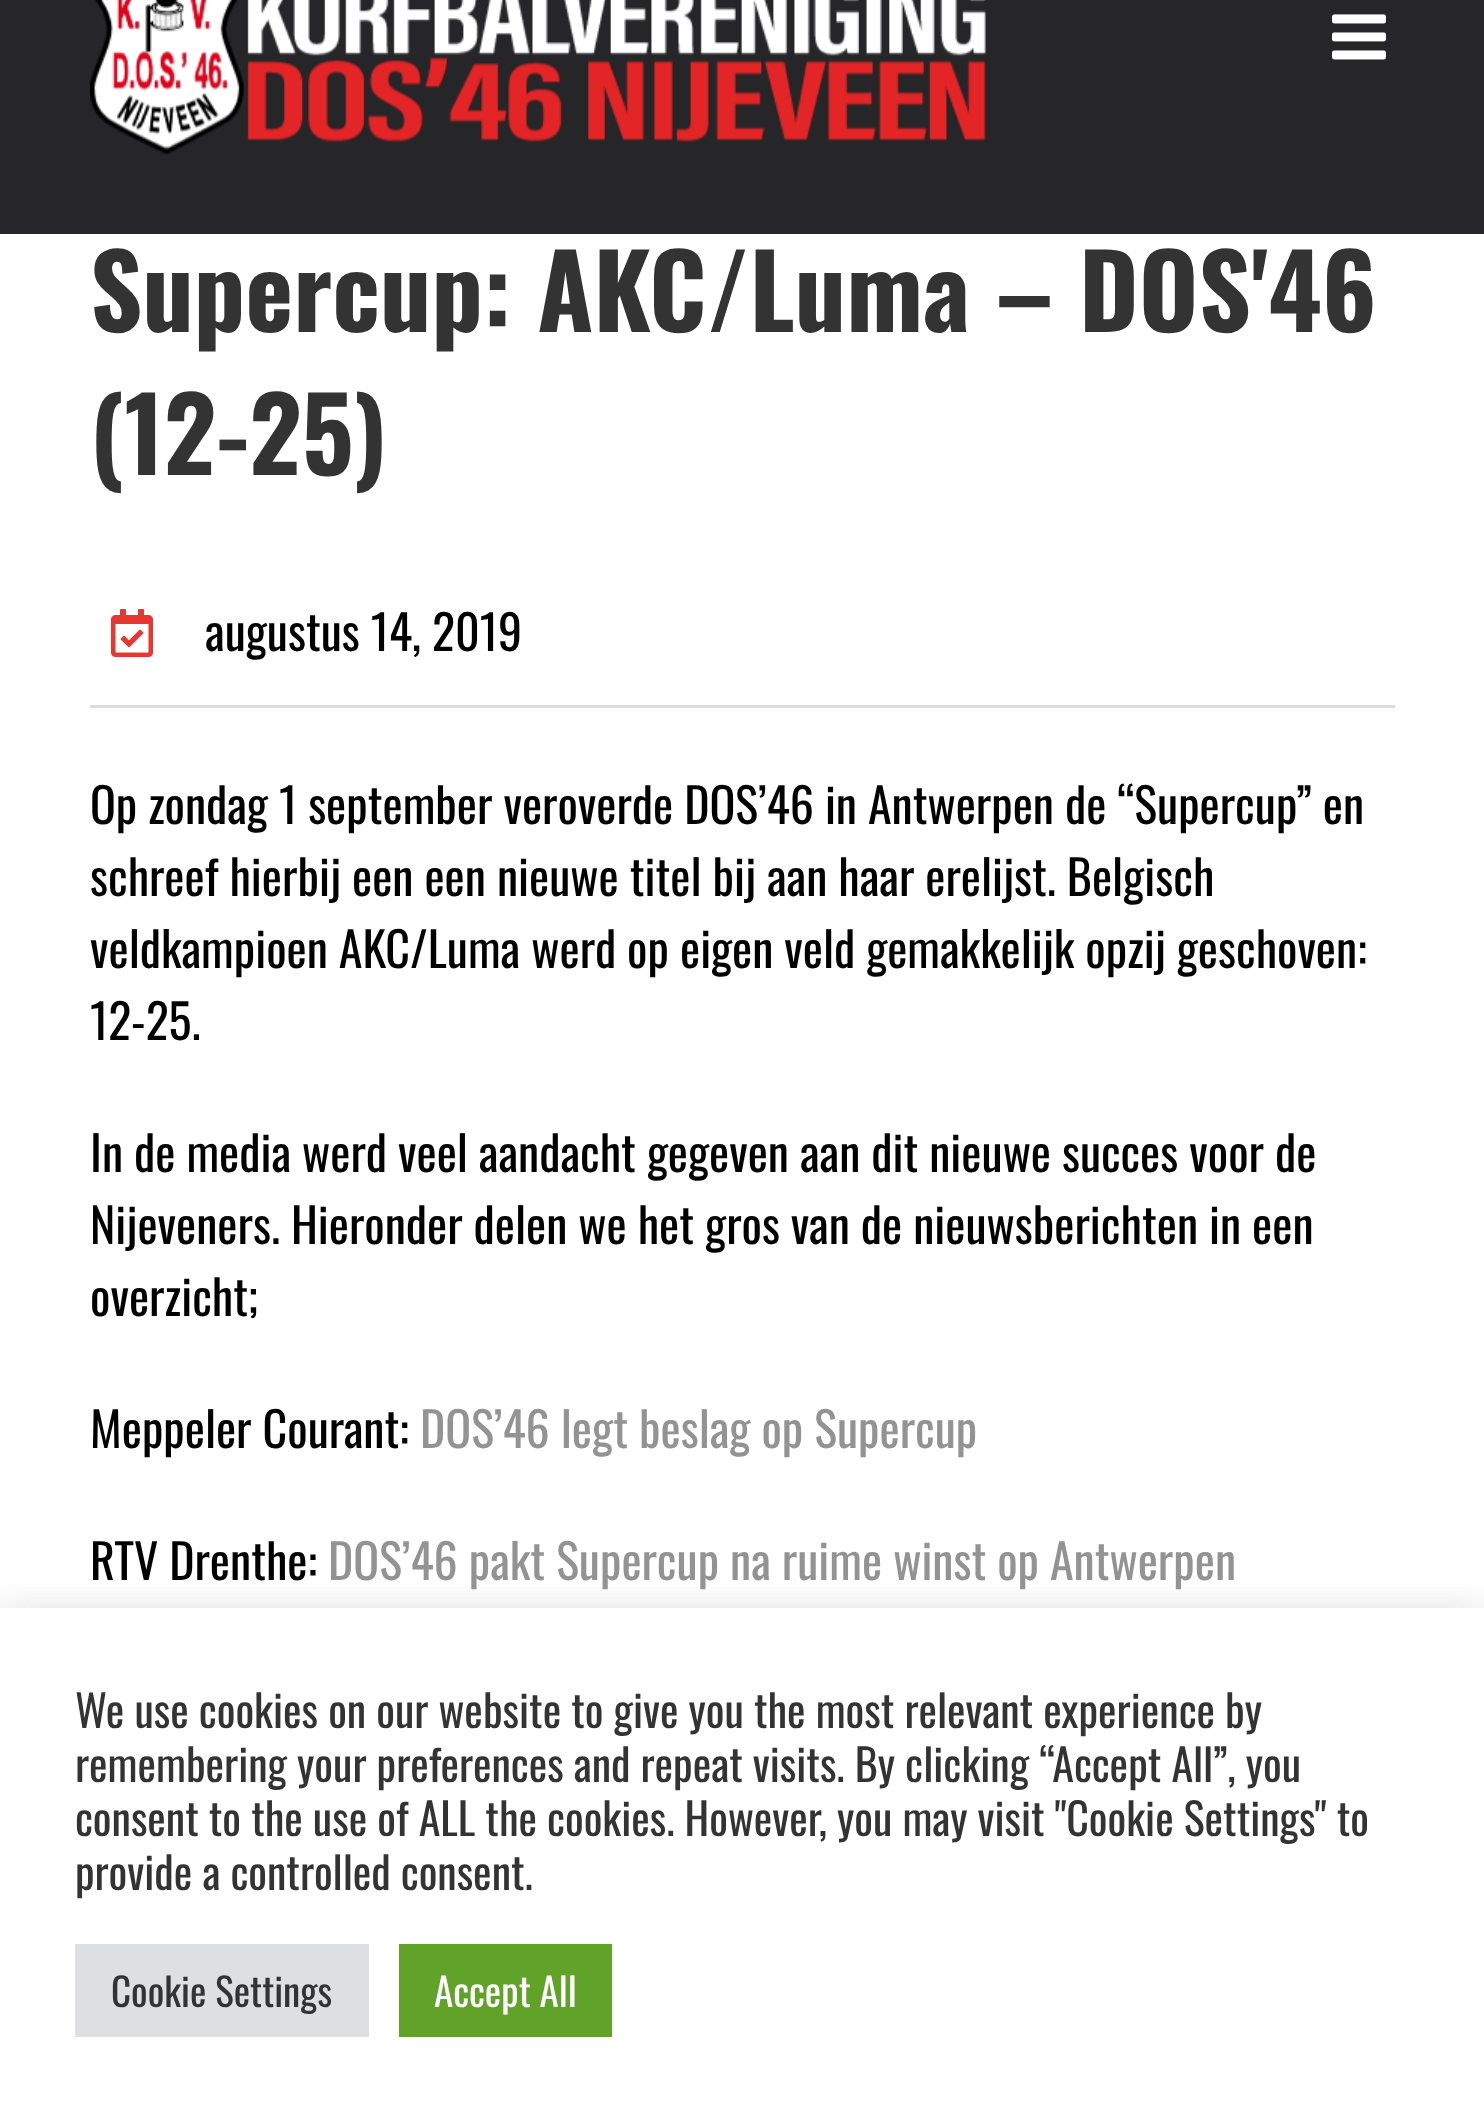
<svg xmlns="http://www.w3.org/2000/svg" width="1484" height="2127">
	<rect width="100%" height="100%" fill="#FFFFFF" />
	<rect x="0" y="0" width="1484" height="234" fill="#262528" />
	<image x="90" y="0" width="896" height="155" href="assets/img1.png" />
	<image x="1332" y="14" width="54" height="46" href="assets/img2.png" />
	<g font-family="Oswald" font-size="102" font-weight="700" fill="#333333">
		<text x="90" y="332">Supercup: AKC/Luma – DOS'46</text>
		<text x="90" y="475">(12-25)</text>
	</g>
	<image x="111" y="609" width="42" height="48" href="assets/img3.png" />
	<text x="205" y="651" font-family="Oswald" font-size="48" fill="#000000">augustus 14, 2019</text>
	<rect x="90" y="705" width="1305" height="3" fill="#DDDBDB" />
	<g font-family="Oswald" font-size="48" fill="#000000">
		<text x="90" y="824">Op zondag 1 september veroverde DOS’46 in Antwerpen de “Supercup” en</text>
		<text x="90" y="896">schreef hierbij een een nieuwe titel bij aan haar erelijst. Belgisch</text>
		<text x="90" y="968">veldkampioen AKC/Luma werd op eigen veld gemakkelijk opzij geschoven:</text>
		<text x="90" y="1040">12-25.</text>
		<text x="90" y="1172">In de media werd veel aandacht gegeven aan dit nieuwe succes voor de</text>
		<text x="90" y="1244">Nijeveners. Hieronder delen we het gros van de nieuwsberichten in een</text>
		<text x="90" y="1316">overzicht;</text>
		<text x="90" y="1448">Meppeler Courant:</text>
	</g>
	<text x="420" y="1448" font-family="Oswald" font-size="48" fill="#939393">DOS’46 legt beslag op Supercup</text>
	<text x="90" y="1580" font-family="Oswald" font-size="48" fill="#000000">RTV Drenthe:</text>
	<text x="328" y="1580" font-family="Oswald" font-size="48" fill="#939393">DOS’46 pakt Supercup na ruime winst op Antwerpen</text>
	<rect x="0" y="1605" width="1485" height="519" fill="#ACABAB" fill-opacity="0.3" filter="blur(15px)" />
	<rect x="0" y="1608" width="1484" height="519" fill="#FFFFFF" />
	<g font-family="Oswald" font-size="44" fill="#333333">
		<text x="75" y="1728">We use cookies on our website to give you the most relevant experience by</text>
		<text x="75" y="1782">remembering your preferences and repeat visits. By clicking “Accept All”, you</text>
		<text x="75" y="1836">consent to the use of ALL the cookies. However, you may visit "Cookie Settings" to</text>
		<text x="75" y="1890">provide a controlled consent.</text>
	</g>
	<rect x="75" y="1944" width="294" height="93" fill="#DEDFE0" />
	<text x="111" y="2007" font-family="Oswald" font-size="39" fill="#333333">Cookie Settings</text>
	<rect x="399" y="1944" width="213" height="93" fill="#61A229" />
	<text x="434" y="2007" font-family="Oswald" font-size="39" fill="#FFFFFF">Accept All</text>
</svg>
